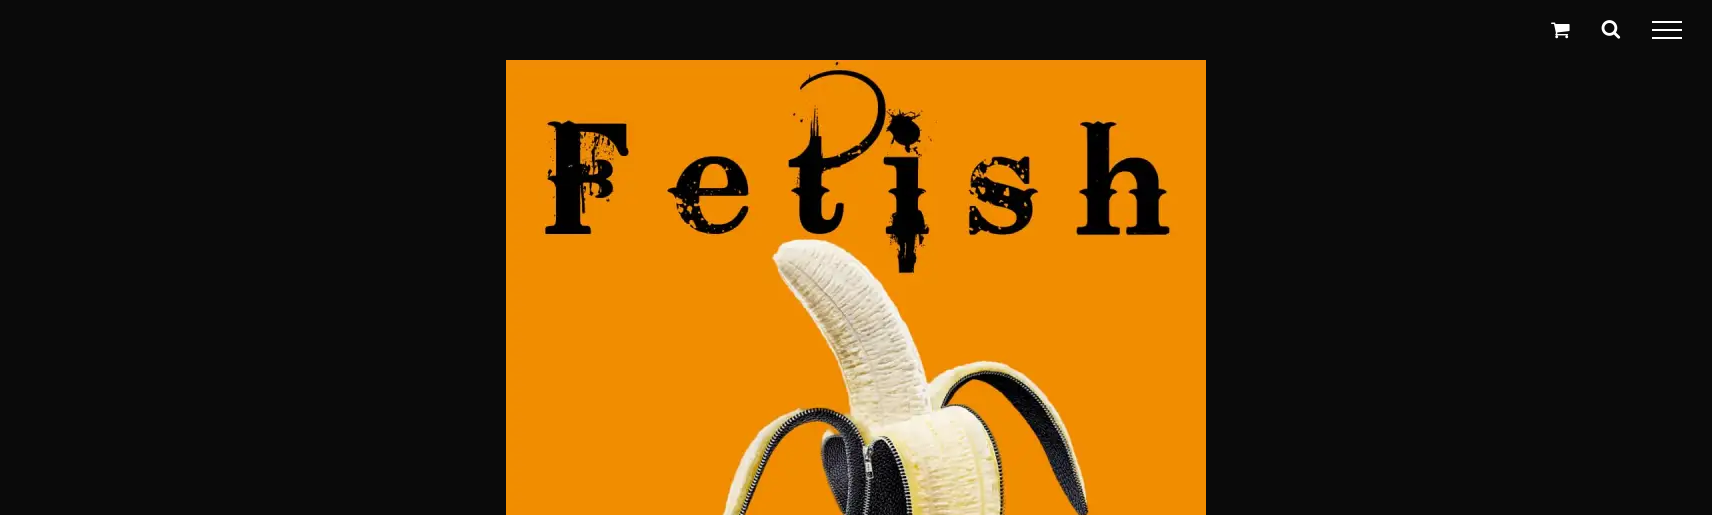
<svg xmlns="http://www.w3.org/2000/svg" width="1712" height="515">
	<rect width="100%" height="100%" fill="#0A0A0A" />
	<image x="1551" y="22" width="19" height="17" href="assets/img1.png" />
	<image x="1601" y="20" width="20" height="19" href="assets/img2.png" />
	<rect x="1652" y="21" width="30" height="2" fill="#FFFFFF" />
	<rect x="1652" y="29" width="30" height="2" fill="#FFFFFF" />
	<rect x="1652" y="37" width="30" height="2" fill="#FFFFFF" />
	<image x="506" y="60" width="700" height="455" href="assets/img3.png" />
</svg>
